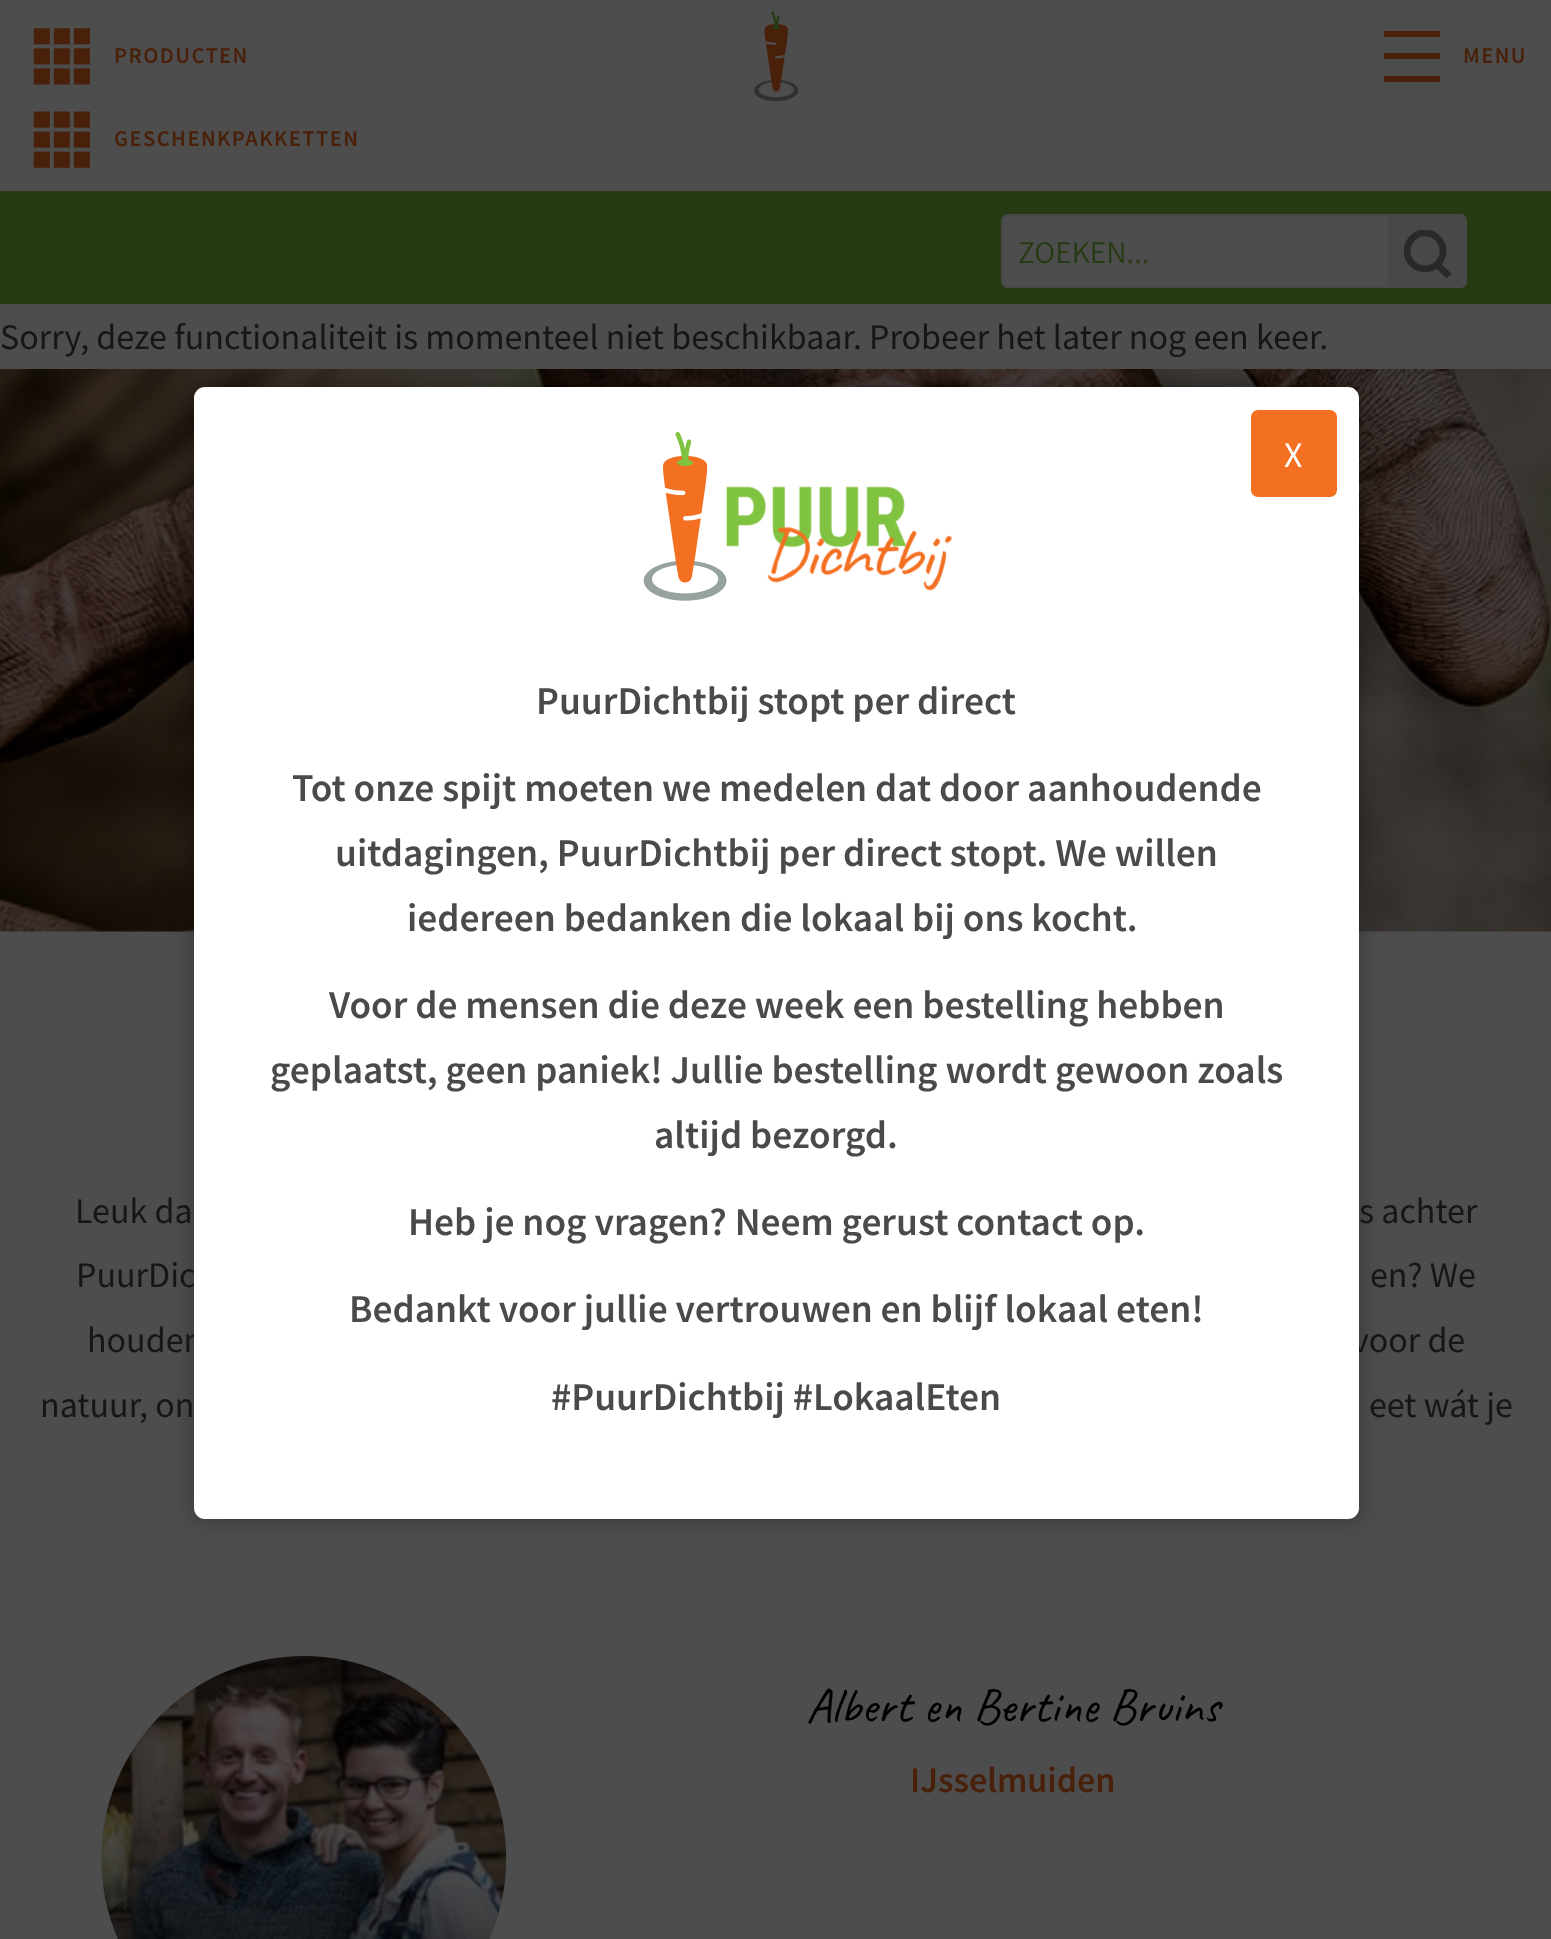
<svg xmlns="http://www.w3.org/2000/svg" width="1551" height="1939">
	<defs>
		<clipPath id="clip1"><rect x="1404" y="230" width="47" height="49" /></clipPath>
	</defs>
	<rect width="100%" height="100%" fill="#4D4D4D" />
	<image x="33" y="28" width="57" height="57" href="assets/img1.png" />
	<text x="114" y="63" font-family="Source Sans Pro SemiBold" font-size="22.5" font-weight="600" letter-spacing="1.4" fill="#49210A">PRODUCTEN</text>
	<image x="754" y="11" width="45" height="90" href="assets/img2.png" />
	<path d="M1384 31H1440V37H1384ZM1384 53H1440V59H1384ZM1384 76H1440V82H1384Z" fill="#49210A" />
	<text x="1463" y="63" font-family="Source Sans Pro SemiBold" font-size="22.5" font-weight="600" letter-spacing="1.4" fill="#49210A">MENU</text>
	<image x="33" y="111" width="57" height="57" href="assets/img3.png" />
	<text x="114" y="146" font-family="Source Sans Pro SemiBold" font-size="22.5" font-weight="600" letter-spacing="1.4" fill="#49210A">GESCHENKPAKKETTEN</text>
	<rect x="0" y="191" width="1551" height="113" fill="#263B14" />
	<rect x="1002" y="215" width="464" height="72" rx="6" fill="#4D4D4D" stroke="#484848" stroke-width="2" />
	<text x="1018" y="263" font-family="Assistant" font-size="31.5" fill="#263B14">ZOEKEN...</text>
	<path d="M1389 215H1460C1463.5 215 1466 217.5 1466 221V281C1466 284.5 1463.5 287 1460 287H1389Z" fill="#484848" stroke="#484848" stroke-width="2" />
	<g clip-path="url(#clip1)">
		<circle cx="1425" cy="251" r="18" fill="none" stroke="#292928" stroke-width="6.7" />
	</g>
	<path d="M1436.5 264L1449 276" fill="none" stroke="#292928" stroke-width="6.7" />
	<text x="0" y="349" font-family="Source Sans Pro" font-size="36" fill="#161616">Sorry, deze functionaliteit is momenteel niet beschikbaar. Probeer het later nog een keer.</text>
	<image x="0" y="369" width="1551" height="563" href="assets/img6.png" />
	<rect x="194" y="387" width="1165" height="1132" rx="11" fill="#000000" fill-opacity="0.3" filter="blur(11px)" />
	<g font-family="Source Sans Pro" font-size="36" fill="#161616">
		<text x="76" y="1287">PuurDic</text>
		<text x="87" y="1352">houden</text>
		<text x="1352" y="1352">voor de</text>
	</g>
	<rect x="194" y="387" width="1165" height="1132" rx="11" fill="#FFFFFF" />
	<image x="643" y="432" width="84" height="169" href="assets/img4.png" />
	<rect x="1251" y="410" width="86" height="87" rx="7" fill="#F36F21" />
	<text x="1284" y="467" font-family="Source Sans Pro" font-size="36" fill="#FFFFFF">X</text>
	<image x="726" y="486" width="226" height="105" href="assets/img5.png" />
	<g font-family="Source Sans Pro SemiBold" font-size="39.4" font-weight="600" fill="#4A4A4A">
		<text x="536" y="714">PuurDichtbij stopt per direct</text>
		<text x="292" y="801">Tot onze spijt moeten we medelen dat door aanhoudende</text>
		<text x="335" y="866">uitdagingen, PuurDichtbij per direct stopt. We willen</text>
		<text x="407" y="931">iedereen bedanken die lokaal bij ons kocht.</text>
		<text x="329" y="1018">Voor de mensen die deze week een bestelling hebben</text>
		<text x="270" y="1083">geplaatst, geen paniek! Jullie bestelling wordt gewoon zoals</text>
		<text x="654" y="1148">altijd bezorgd.</text>
		<text x="408" y="1235">Heb je nog vragen? Neem gerust contact op.</text>
		<text x="349" y="1322">Bedankt voor jullie vertrouwen en blijf lokaal eten!</text>
		<text x="551" y="1410">#PuurDichtbij #LokaalEten</text>
	</g>
	<g font-family="Source Sans Pro" font-size="36" fill="#161616">
		<text x="75" y="1223">Leuk da</text>
		<text x="1359" y="1223">s achter</text>
		<text x="1370" y="1287">en? We</text>
		<text x="40" y="1417">natuur, on</text>
		<text x="1369" y="1417">eet wát je</text>
	</g>
	<image x="101" y="1656" width="406" height="283" href="assets/img7.png" />
	<text x="806" y="1722" font-family="Caveat" font-size="49.5" fill="#000000">Albert en Bertine Bruins</text>
	<text x="910" y="1792" font-family="Source Sans Pro SemiBold" font-size="36" font-weight="600" fill="#49210A">IJsselmuiden</text>
</svg>
